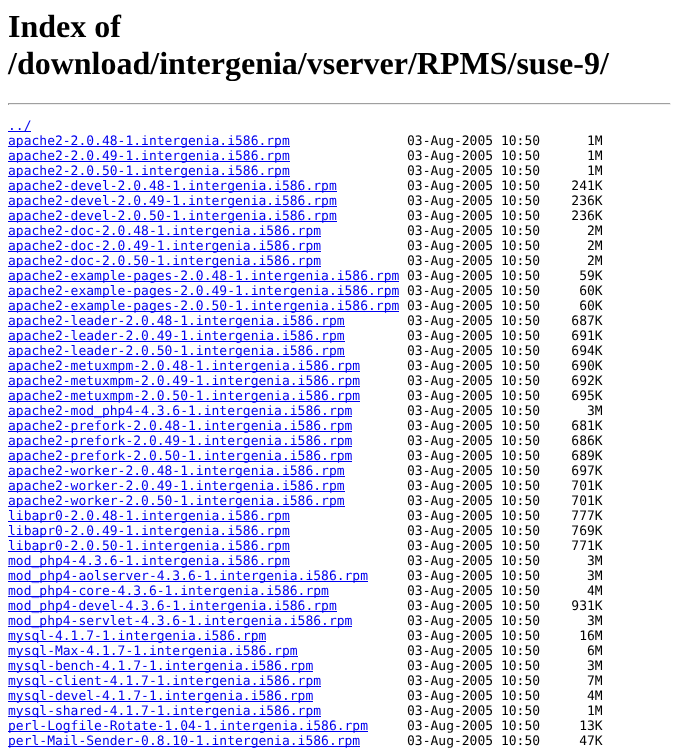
<svg xmlns="http://www.w3.org/2000/svg" width="679" height="752">
	<rect width="100%" height="100%" fill="#FFFFFF" />
	<g font-family="Liberation Serif" font-size="32" font-weight="700" fill="#000000">
		<text x="8" y="37">Index of</text>
		<text x="8" y="74">/download/intergenia/vserver/RPMS/suse-9/</text>
	</g>
	<rect x="8" y="103" width="663" height="1" fill="#9F9F9F" />
	<rect x="670" y="103" width="1" height="2" fill="#EEEEEE" />
	<rect x="8" y="104" width="663" height="1" fill="#EEEEEE" />
	<rect x="8" y="103" width="1" height="2" fill="#9F9F9F" />
	<rect x="8" y="131" width="23" height="1" fill="#0000EE" />
	<text x="8" y="130" font-family="DejaVu Sans Mono" font-size="13" fill="#0000EE">../</text>
	<rect x="8" y="146" width="282" height="1" fill="#0000EE" />
	<text x="8" y="145" font-family="DejaVu Sans Mono" font-size="13" fill="#0000EE">apache2-2.0.48-1.intergenia.i586.rpm</text>
	<text x="407" y="145" font-family="DejaVu Sans Mono" font-size="13" fill="#000000" xml:space="preserve">03-Aug-2005 10:50      1M</text>
	<rect x="8" y="161" width="282" height="1" fill="#0000EE" />
	<text x="8" y="160" font-family="DejaVu Sans Mono" font-size="13" fill="#0000EE">apache2-2.0.49-1.intergenia.i586.rpm</text>
	<text x="407" y="160" font-family="DejaVu Sans Mono" font-size="13" fill="#000000" xml:space="preserve">03-Aug-2005 10:50      1M</text>
	<rect x="8" y="176" width="282" height="1" fill="#0000EE" />
	<text x="8" y="175" font-family="DejaVu Sans Mono" font-size="13" fill="#0000EE">apache2-2.0.50-1.intergenia.i586.rpm</text>
	<text x="407" y="175" font-family="DejaVu Sans Mono" font-size="13" fill="#000000" xml:space="preserve">03-Aug-2005 10:50      1M</text>
	<rect x="8" y="191" width="329" height="1" fill="#0000EE" />
	<text x="8" y="190" font-family="DejaVu Sans Mono" font-size="13" fill="#0000EE">apache2-devel-2.0.48-1.intergenia.i586.rpm</text>
	<text x="407" y="190" font-family="DejaVu Sans Mono" font-size="13" fill="#000000" xml:space="preserve">03-Aug-2005 10:50    241K</text>
	<rect x="8" y="206" width="329" height="1" fill="#0000EE" />
	<text x="8" y="205" font-family="DejaVu Sans Mono" font-size="13" fill="#0000EE">apache2-devel-2.0.49-1.intergenia.i586.rpm</text>
	<text x="407" y="205" font-family="DejaVu Sans Mono" font-size="13" fill="#000000" xml:space="preserve">03-Aug-2005 10:50    236K</text>
	<rect x="8" y="221" width="329" height="1" fill="#0000EE" />
	<text x="8" y="220" font-family="DejaVu Sans Mono" font-size="13" fill="#0000EE">apache2-devel-2.0.50-1.intergenia.i586.rpm</text>
	<text x="407" y="220" font-family="DejaVu Sans Mono" font-size="13" fill="#000000" xml:space="preserve">03-Aug-2005 10:50    236K</text>
	<rect x="8" y="236" width="313" height="1" fill="#0000EE" />
	<text x="8" y="235" font-family="DejaVu Sans Mono" font-size="13" fill="#0000EE">apache2-doc-2.0.48-1.intergenia.i586.rpm</text>
	<text x="407" y="235" font-family="DejaVu Sans Mono" font-size="13" fill="#000000" xml:space="preserve">03-Aug-2005 10:50      2M</text>
	<rect x="8" y="251" width="313" height="1" fill="#0000EE" />
	<text x="8" y="250" font-family="DejaVu Sans Mono" font-size="13" fill="#0000EE">apache2-doc-2.0.49-1.intergenia.i586.rpm</text>
	<text x="407" y="250" font-family="DejaVu Sans Mono" font-size="13" fill="#000000" xml:space="preserve">03-Aug-2005 10:50      2M</text>
	<rect x="8" y="266" width="313" height="1" fill="#0000EE" />
	<text x="8" y="265" font-family="DejaVu Sans Mono" font-size="13" fill="#0000EE">apache2-doc-2.0.50-1.intergenia.i586.rpm</text>
	<text x="407" y="265" font-family="DejaVu Sans Mono" font-size="13" fill="#000000" xml:space="preserve">03-Aug-2005 10:50      2M</text>
	<rect x="8" y="281" width="391" height="1" fill="#0000EE" />
	<text x="8" y="280" font-family="DejaVu Sans Mono" font-size="13" fill="#0000EE">apache2-example-pages-2.0.48-1.intergenia.i586.rpm</text>
	<text x="407" y="280" font-family="DejaVu Sans Mono" font-size="13" fill="#000000" xml:space="preserve">03-Aug-2005 10:50     59K</text>
	<rect x="8" y="296" width="391" height="1" fill="#0000EE" />
	<text x="8" y="295" font-family="DejaVu Sans Mono" font-size="13" fill="#0000EE">apache2-example-pages-2.0.49-1.intergenia.i586.rpm</text>
	<text x="407" y="295" font-family="DejaVu Sans Mono" font-size="13" fill="#000000" xml:space="preserve">03-Aug-2005 10:50     60K</text>
	<rect x="8" y="311" width="391" height="1" fill="#0000EE" />
	<text x="8" y="310" font-family="DejaVu Sans Mono" font-size="13" fill="#0000EE">apache2-example-pages-2.0.50-1.intergenia.i586.rpm</text>
	<text x="407" y="310" font-family="DejaVu Sans Mono" font-size="13" fill="#000000" xml:space="preserve">03-Aug-2005 10:50     60K</text>
	<rect x="8" y="326" width="337" height="1" fill="#0000EE" />
	<text x="8" y="325" font-family="DejaVu Sans Mono" font-size="13" fill="#0000EE">apache2-leader-2.0.48-1.intergenia.i586.rpm</text>
	<text x="407" y="325" font-family="DejaVu Sans Mono" font-size="13" fill="#000000" xml:space="preserve">03-Aug-2005 10:50    687K</text>
	<rect x="8" y="341" width="337" height="1" fill="#0000EE" />
	<text x="8" y="340" font-family="DejaVu Sans Mono" font-size="13" fill="#0000EE">apache2-leader-2.0.49-1.intergenia.i586.rpm</text>
	<text x="407" y="340" font-family="DejaVu Sans Mono" font-size="13" fill="#000000" xml:space="preserve">03-Aug-2005 10:50    691K</text>
	<rect x="8" y="356" width="337" height="1" fill="#0000EE" />
	<text x="8" y="355" font-family="DejaVu Sans Mono" font-size="13" fill="#0000EE">apache2-leader-2.0.50-1.intergenia.i586.rpm</text>
	<text x="407" y="355" font-family="DejaVu Sans Mono" font-size="13" fill="#000000" xml:space="preserve">03-Aug-2005 10:50    694K</text>
	<rect x="8" y="371" width="352" height="1" fill="#0000EE" />
	<text x="8" y="370" font-family="DejaVu Sans Mono" font-size="13" fill="#0000EE">apache2-metuxmpm-2.0.48-1.intergenia.i586.rpm</text>
	<text x="407" y="370" font-family="DejaVu Sans Mono" font-size="13" fill="#000000" xml:space="preserve">03-Aug-2005 10:50    690K</text>
	<rect x="8" y="386" width="352" height="1" fill="#0000EE" />
	<text x="8" y="385" font-family="DejaVu Sans Mono" font-size="13" fill="#0000EE">apache2-metuxmpm-2.0.49-1.intergenia.i586.rpm</text>
	<text x="407" y="385" font-family="DejaVu Sans Mono" font-size="13" fill="#000000" xml:space="preserve">03-Aug-2005 10:50    692K</text>
	<rect x="8" y="401" width="352" height="1" fill="#0000EE" />
	<text x="8" y="400" font-family="DejaVu Sans Mono" font-size="13" fill="#0000EE">apache2-metuxmpm-2.0.50-1.intergenia.i586.rpm</text>
	<text x="407" y="400" font-family="DejaVu Sans Mono" font-size="13" fill="#000000" xml:space="preserve">03-Aug-2005 10:50    695K</text>
	<rect x="8" y="416" width="344" height="1" fill="#0000EE" />
	<text x="8" y="415" font-family="DejaVu Sans Mono" font-size="13" fill="#0000EE">apache2-mod_php4-4.3.6-1.intergenia.i586.rpm</text>
	<text x="407" y="415" font-family="DejaVu Sans Mono" font-size="13" fill="#000000" xml:space="preserve">03-Aug-2005 10:50      3M</text>
	<rect x="8" y="431" width="344" height="1" fill="#0000EE" />
	<text x="8" y="430" font-family="DejaVu Sans Mono" font-size="13" fill="#0000EE">apache2-prefork-2.0.48-1.intergenia.i586.rpm</text>
	<text x="407" y="430" font-family="DejaVu Sans Mono" font-size="13" fill="#000000" xml:space="preserve">03-Aug-2005 10:50    681K</text>
	<rect x="8" y="446" width="344" height="1" fill="#0000EE" />
	<text x="8" y="445" font-family="DejaVu Sans Mono" font-size="13" fill="#0000EE">apache2-prefork-2.0.49-1.intergenia.i586.rpm</text>
	<text x="407" y="445" font-family="DejaVu Sans Mono" font-size="13" fill="#000000" xml:space="preserve">03-Aug-2005 10:50    686K</text>
	<rect x="8" y="461" width="344" height="1" fill="#0000EE" />
	<text x="8" y="460" font-family="DejaVu Sans Mono" font-size="13" fill="#0000EE">apache2-prefork-2.0.50-1.intergenia.i586.rpm</text>
	<text x="407" y="460" font-family="DejaVu Sans Mono" font-size="13" fill="#000000" xml:space="preserve">03-Aug-2005 10:50    689K</text>
	<rect x="8" y="476" width="337" height="1" fill="#0000EE" />
	<text x="8" y="475" font-family="DejaVu Sans Mono" font-size="13" fill="#0000EE">apache2-worker-2.0.48-1.intergenia.i586.rpm</text>
	<text x="407" y="475" font-family="DejaVu Sans Mono" font-size="13" fill="#000000" xml:space="preserve">03-Aug-2005 10:50    697K</text>
	<rect x="8" y="491" width="337" height="1" fill="#0000EE" />
	<text x="8" y="490" font-family="DejaVu Sans Mono" font-size="13" fill="#0000EE">apache2-worker-2.0.49-1.intergenia.i586.rpm</text>
	<text x="407" y="490" font-family="DejaVu Sans Mono" font-size="13" fill="#000000" xml:space="preserve">03-Aug-2005 10:50    701K</text>
	<rect x="8" y="506" width="337" height="1" fill="#0000EE" />
	<text x="8" y="505" font-family="DejaVu Sans Mono" font-size="13" fill="#0000EE">apache2-worker-2.0.50-1.intergenia.i586.rpm</text>
	<text x="407" y="505" font-family="DejaVu Sans Mono" font-size="13" fill="#000000" xml:space="preserve">03-Aug-2005 10:50    701K</text>
	<rect x="8" y="521" width="282" height="1" fill="#0000EE" />
	<text x="8" y="520" font-family="DejaVu Sans Mono" font-size="13" fill="#0000EE">libapr0-2.0.48-1.intergenia.i586.rpm</text>
	<text x="407" y="520" font-family="DejaVu Sans Mono" font-size="13" fill="#000000" xml:space="preserve">03-Aug-2005 10:50    777K</text>
	<rect x="8" y="536" width="282" height="1" fill="#0000EE" />
	<text x="8" y="535" font-family="DejaVu Sans Mono" font-size="13" fill="#0000EE">libapr0-2.0.49-1.intergenia.i586.rpm</text>
	<text x="407" y="535" font-family="DejaVu Sans Mono" font-size="13" fill="#000000" xml:space="preserve">03-Aug-2005 10:50    769K</text>
	<rect x="8" y="551" width="282" height="1" fill="#0000EE" />
	<text x="8" y="550" font-family="DejaVu Sans Mono" font-size="13" fill="#0000EE">libapr0-2.0.50-1.intergenia.i586.rpm</text>
	<text x="407" y="550" font-family="DejaVu Sans Mono" font-size="13" fill="#000000" xml:space="preserve">03-Aug-2005 10:50    771K</text>
	<rect x="8" y="566" width="282" height="1" fill="#0000EE" />
	<text x="8" y="565" font-family="DejaVu Sans Mono" font-size="13" fill="#0000EE">mod_php4-4.3.6-1.intergenia.i586.rpm</text>
	<text x="407" y="565" font-family="DejaVu Sans Mono" font-size="13" fill="#000000" xml:space="preserve">03-Aug-2005 10:50      3M</text>
	<rect x="8" y="581" width="360" height="1" fill="#0000EE" />
	<text x="8" y="580" font-family="DejaVu Sans Mono" font-size="13" fill="#0000EE">mod_php4-aolserver-4.3.6-1.intergenia.i586.rpm</text>
	<text x="407" y="580" font-family="DejaVu Sans Mono" font-size="13" fill="#000000" xml:space="preserve">03-Aug-2005 10:50      3M</text>
	<rect x="8" y="596" width="321" height="1" fill="#0000EE" />
	<text x="8" y="595" font-family="DejaVu Sans Mono" font-size="13" fill="#0000EE">mod_php4-core-4.3.6-1.intergenia.i586.rpm</text>
	<text x="407" y="595" font-family="DejaVu Sans Mono" font-size="13" fill="#000000" xml:space="preserve">03-Aug-2005 10:50      4M</text>
	<rect x="8" y="611" width="329" height="1" fill="#0000EE" />
	<text x="8" y="610" font-family="DejaVu Sans Mono" font-size="13" fill="#0000EE">mod_php4-devel-4.3.6-1.intergenia.i586.rpm</text>
	<text x="407" y="610" font-family="DejaVu Sans Mono" font-size="13" fill="#000000" xml:space="preserve">03-Aug-2005 10:50    931K</text>
	<rect x="8" y="626" width="344" height="1" fill="#0000EE" />
	<text x="8" y="625" font-family="DejaVu Sans Mono" font-size="13" fill="#0000EE">mod_php4-servlet-4.3.6-1.intergenia.i586.rpm</text>
	<text x="407" y="625" font-family="DejaVu Sans Mono" font-size="13" fill="#000000" xml:space="preserve">03-Aug-2005 10:50      3M</text>
	<rect x="8" y="641" width="258" height="1" fill="#0000EE" />
	<text x="8" y="640" font-family="DejaVu Sans Mono" font-size="13" fill="#0000EE">mysql-4.1.7-1.intergenia.i586.rpm</text>
	<text x="407" y="640" font-family="DejaVu Sans Mono" font-size="13" fill="#000000" xml:space="preserve">03-Aug-2005 10:50     16M</text>
	<rect x="8" y="656" width="290" height="1" fill="#0000EE" />
	<text x="8" y="655" font-family="DejaVu Sans Mono" font-size="13" fill="#0000EE">mysql-Max-4.1.7-1.intergenia.i586.rpm</text>
	<text x="407" y="655" font-family="DejaVu Sans Mono" font-size="13" fill="#000000" xml:space="preserve">03-Aug-2005 10:50      6M</text>
	<rect x="8" y="671" width="305" height="1" fill="#0000EE" />
	<text x="8" y="670" font-family="DejaVu Sans Mono" font-size="13" fill="#0000EE">mysql-bench-4.1.7-1.intergenia.i586.rpm</text>
	<text x="407" y="670" font-family="DejaVu Sans Mono" font-size="13" fill="#000000" xml:space="preserve">03-Aug-2005 10:50      3M</text>
	<rect x="8" y="686" width="313" height="1" fill="#0000EE" />
	<text x="8" y="685" font-family="DejaVu Sans Mono" font-size="13" fill="#0000EE">mysql-client-4.1.7-1.intergenia.i586.rpm</text>
	<text x="407" y="685" font-family="DejaVu Sans Mono" font-size="13" fill="#000000" xml:space="preserve">03-Aug-2005 10:50      7M</text>
	<rect x="8" y="701" width="305" height="1" fill="#0000EE" />
	<text x="8" y="700" font-family="DejaVu Sans Mono" font-size="13" fill="#0000EE">mysql-devel-4.1.7-1.intergenia.i586.rpm</text>
	<text x="407" y="700" font-family="DejaVu Sans Mono" font-size="13" fill="#000000" xml:space="preserve">03-Aug-2005 10:50      4M</text>
	<rect x="8" y="716" width="313" height="1" fill="#0000EE" />
	<text x="8" y="715" font-family="DejaVu Sans Mono" font-size="13" fill="#0000EE">mysql-shared-4.1.7-1.intergenia.i586.rpm</text>
	<text x="407" y="715" font-family="DejaVu Sans Mono" font-size="13" fill="#000000" xml:space="preserve">03-Aug-2005 10:50      1M</text>
	<rect x="8" y="731" width="360" height="1" fill="#0000EE" />
	<text x="8" y="730" font-family="DejaVu Sans Mono" font-size="13" fill="#0000EE">perl-Logfile-Rotate-1.04-1.intergenia.i586.rpm</text>
	<text x="407" y="730" font-family="DejaVu Sans Mono" font-size="13" fill="#000000" xml:space="preserve">03-Aug-2005 10:50     13K</text>
	<rect x="8" y="746" width="352" height="1" fill="#0000EE" />
	<text x="8" y="745" font-family="DejaVu Sans Mono" font-size="13" fill="#0000EE">perl-Mail-Sender-0.8.10-1.intergenia.i586.rpm</text>
	<text x="407" y="745" font-family="DejaVu Sans Mono" font-size="13" fill="#000000" xml:space="preserve">03-Aug-2005 10:50     47K</text>
</svg>
